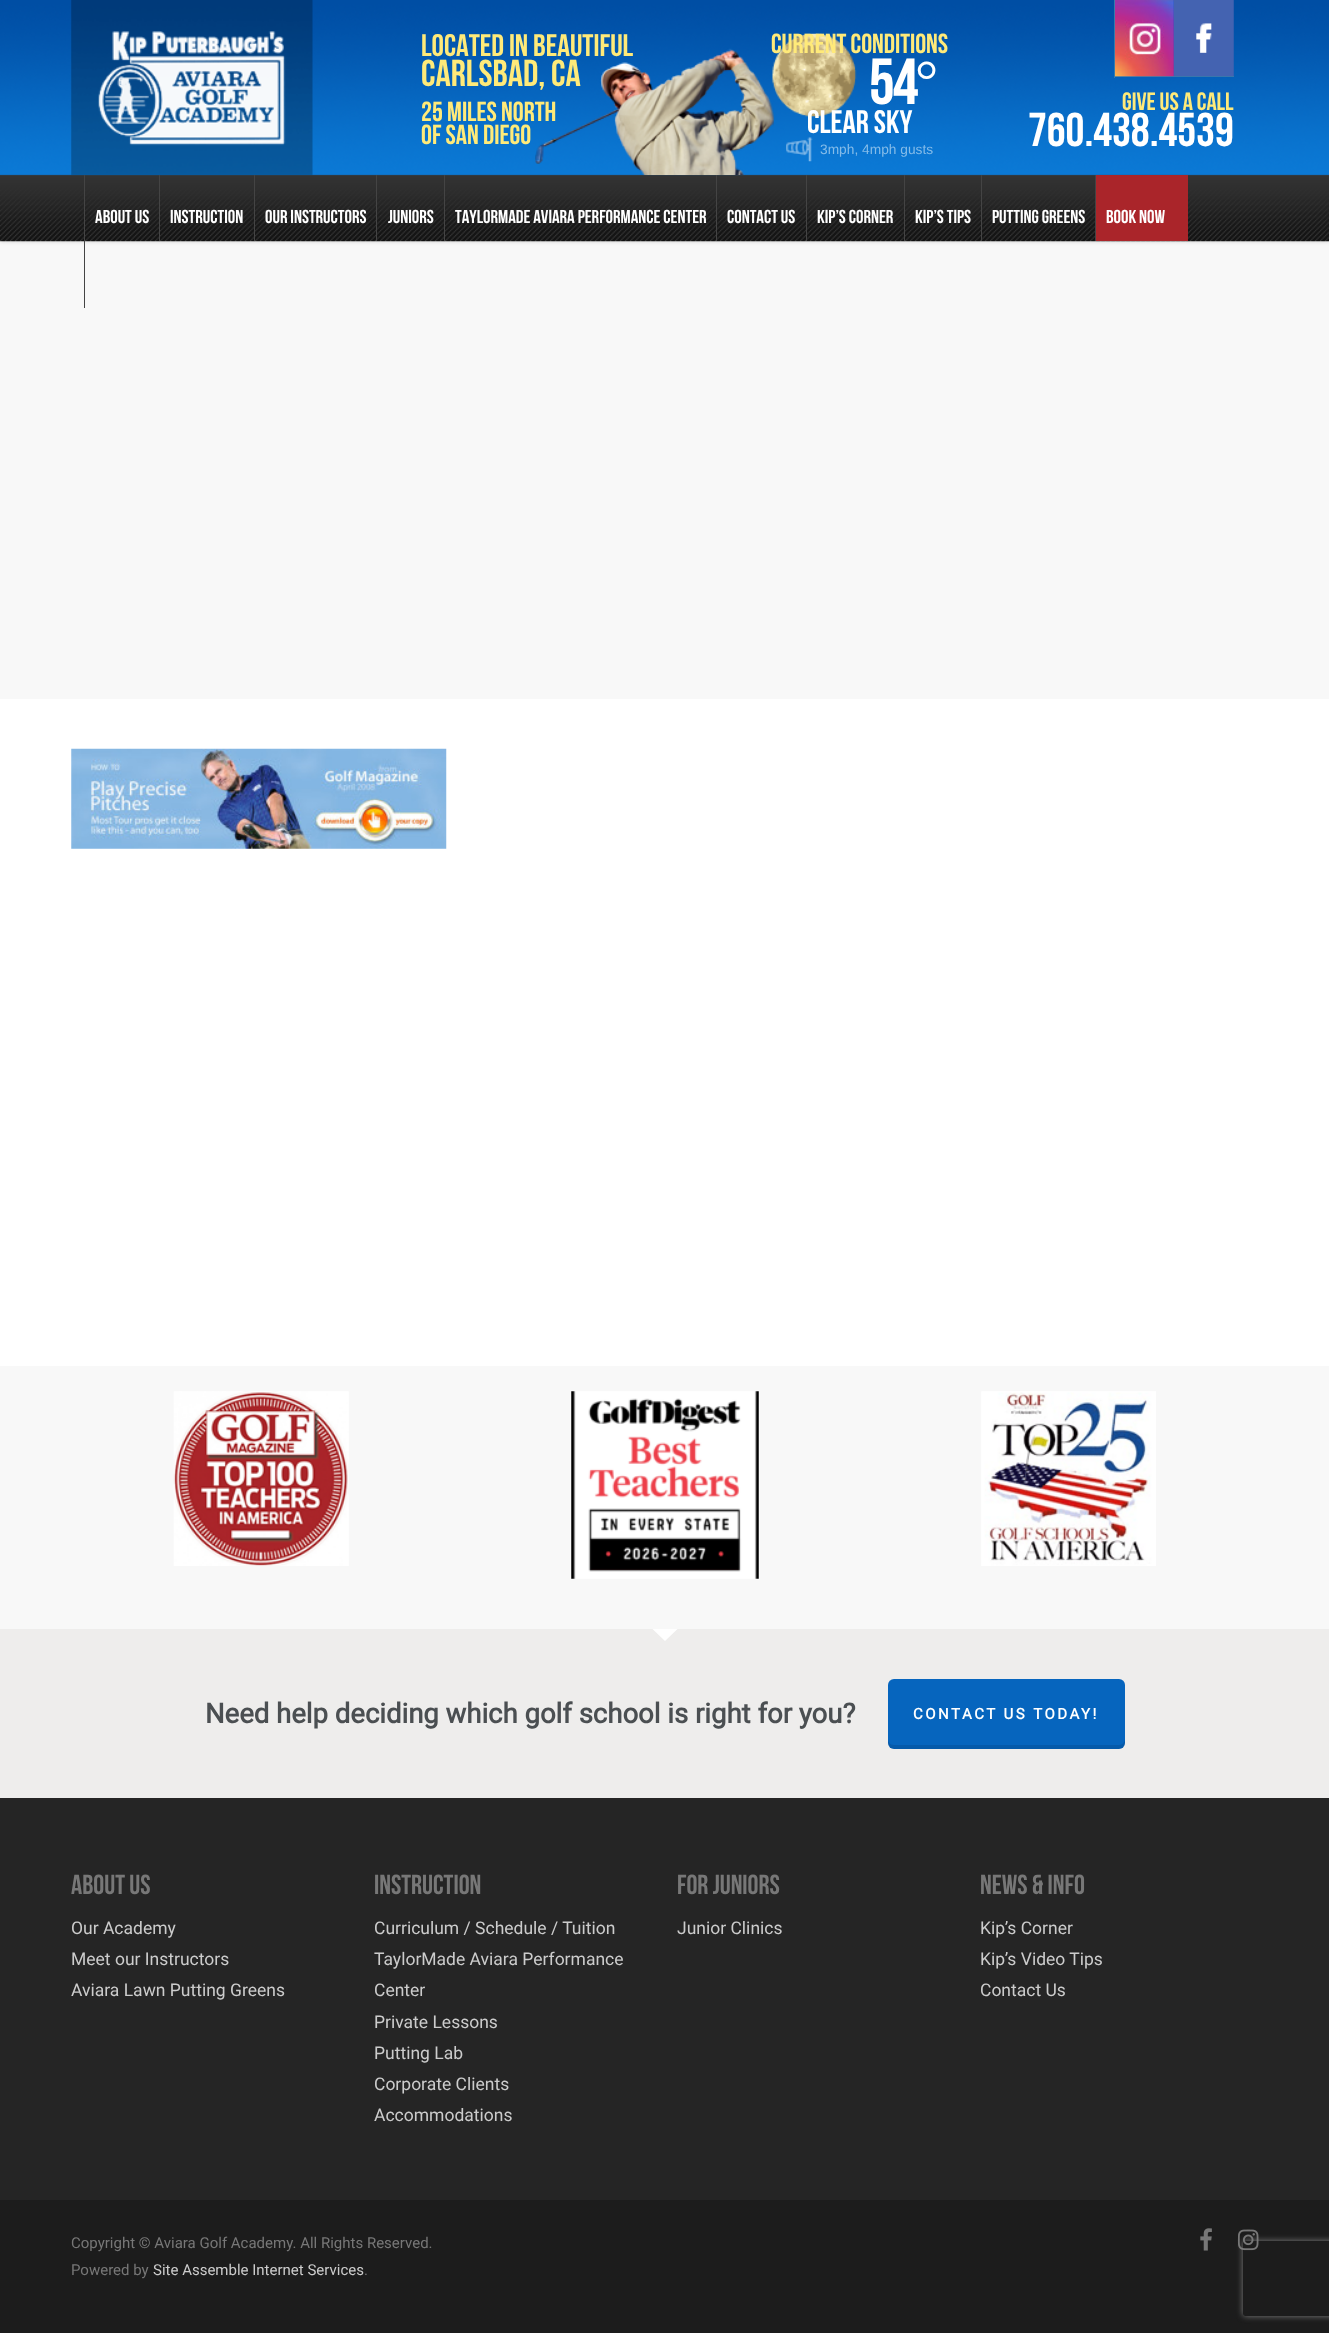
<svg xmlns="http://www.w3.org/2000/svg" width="1329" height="2333">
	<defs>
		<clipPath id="clip1"><path d="M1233 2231H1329V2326H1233ZM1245.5 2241H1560.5C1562 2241 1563 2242 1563 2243.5V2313.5C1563 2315 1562 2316 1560.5 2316H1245.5C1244 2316 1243 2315 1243 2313.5V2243.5C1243 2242 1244 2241 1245.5 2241Z" clip-rule="evenodd" /></clipPath>
	</defs>
	<rect width="100%" height="100%" fill="#F8F8F8" />
	<rect x="0" y="0" width="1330" height="241" fill="#000000" fill-opacity="0.22" filter="blur(2px)" />
	<image x="0" y="0" width="1329" height="242" href="assets/img1.png" />
	<image x="71" y="0" width="242" height="175" href="assets/img2.png" />
	<image x="535" y="48" width="239" height="127" href="assets/img3.png" />
	<text x="421" y="56" font-family="Bebas Neue" font-size="31.25" fill="#FFEA79">Located in Beautiful</text>
	<text x="421" y="86" font-family="Bebas Neue" font-size="37.5" fill="#FFEA79">Carlsbad, CA</text>
	<g font-family="Bebas Neue" font-size="27.5" fill="#FFEA79">
		<text x="421" y="121">25 Miles North</text>
		<text x="421" y="144">of San Diego</text>
	</g>
	<image x="772" y="33" width="85" height="84" href="assets/img4.png" />
	<text x="771" y="53" font-family="Bebas Neue" font-size="27.5" fill="#FFEA79">Current Conditions</text>
	<text x="869" y="104" font-family="Bebas Neue" font-size="65" letter-spacing="-2" fill="#FFFFFF">54</text>
	<text x="915" y="100" font-family="Liberation Serif" font-size="58" letter-spacing="-2" fill="#FFFFFF">°</text>
	<text x="807" y="133" font-family="Bebas Neue" font-size="32.5" fill="#FFFFFF">clear sky</text>
	<image x="786" y="137" width="27" height="25" href="assets/img5.png" />
	<text x="820" y="154" font-family="Liberation Sans" font-size="13.75" fill="#85BCE9">3mph, 4mph gusts</text>
	<rect x="1174" y="76" width="60" height="1" fill="#367CAC" />
	<image x="1173" y="0" width="61" height="77" href="assets/img7.png" />
	<rect x="1114" y="76" width="60" height="1" fill="#367CAC" />
	<rect x="1114" y="0" width="1" height="78" fill="#367CAC" />
	<image x="1115" y="0" width="59" height="77" href="assets/img6.png" />
	<text x="1122" y="110" font-family="Bebas Neue" font-size="25" fill="#FFEA79">Give Us a Call</text>
	<text x="1028" y="146" font-family="Bebas Neue" font-size="47.5" fill="#FFFFFF">760.438.4539</text>
	<rect x="84" y="175" width="1" height="133" fill="#444444" />
	<text x="95" y="223" font-family="Bebas Neue" font-size="18.75" fill="#FFFFFF">ABOUT US</text>
	<rect x="159" y="175" width="1" height="66" fill="#444444" />
	<text x="170" y="223" font-family="Bebas Neue" font-size="18.75" fill="#FFFFFF">INSTRUCTION</text>
	<rect x="254" y="175" width="1" height="66" fill="#444444" />
	<text x="265" y="223" font-family="Bebas Neue" font-size="18.75" fill="#FFFFFF">OUR INSTRUCTORS</text>
	<rect x="376" y="175" width="1" height="66" fill="#444444" />
	<text x="388" y="223" font-family="Bebas Neue" font-size="18.75" fill="#FFFFFF">JUNIORS</text>
	<rect x="444" y="175" width="1" height="66" fill="#444444" />
	<text x="455" y="223" font-family="Bebas Neue" font-size="18.75" fill="#FFFFFF">TAYLORMADE AVIARA PERFORMANCE CENTER</text>
	<rect x="716" y="175" width="1" height="66" fill="#444444" />
	<text x="727" y="223" font-family="Bebas Neue" font-size="18.75" fill="#FFFFFF">CONTACT US</text>
	<rect x="806" y="175" width="1" height="66" fill="#444444" />
	<text x="817" y="223" font-family="Bebas Neue" font-size="18.75" fill="#FFFFFF">KIP’S CORNER</text>
	<rect x="904" y="175" width="1" height="66" fill="#444444" />
	<text x="915" y="223" font-family="Bebas Neue" font-size="18.75" fill="#FFFFFF">KIP’S TIPS</text>
	<rect x="981" y="175" width="1" height="66" fill="#444444" />
	<text x="992" y="223" font-family="Bebas Neue" font-size="18.75" fill="#FFFFFF">PUTTING GREENS</text>
	<rect x="1096" y="175" width="92" height="66" fill="#AA252A" />
	<rect x="1095" y="175" width="1" height="66" fill="#444444" />
	<text x="1106" y="223" font-family="Bebas Neue" font-size="18.75" fill="#FFFFFF">BOOK NOW</text>
	<rect x="0" y="699" width="1329" height="667" fill="#FFFFFF" />
	<image x="71" y="748" width="376" height="101" href="assets/img8.png" />
	<image x="173" y="1391" width="176" height="175" href="assets/img9.png" />
	<image x="571" y="1391" width="188" height="188" href="assets/img10.png" />
	<image x="981" y="1391" width="175" height="175" href="assets/img11.png" />
	<rect x="0" y="1798" width="1329" height="402" fill="#252525" />
	<rect x="0" y="1629" width="1329" height="169" fill="#EEEDEC" />
	<path d="M652.5 1629H677.5L665 1641Z" fill="#FFFFFF" />
	<text x="205" y="1723" font-family="Roboto" font-size="27.5" font-weight="700" fill="#4B4F52">Need help deciding which golf school is right for you?</text>
	<rect x="888" y="1679" width="237" height="70" rx="6" fill="#0665BE" />
	<path d="M888 1739V1743C888 1746 891 1749 894 1749H1119C1122 1749 1125 1746 1125 1743V1739C1125 1742 1122 1745 1119 1745H894C890 1745 888 1742 888 1739Z" fill="#000000" fill-opacity="0.1" />
	<text x="913" y="1719" font-family="Roboto" font-size="15" font-weight="700" letter-spacing="2.5" fill="#FFFFFF">CONTACT US TODAY!</text>
	<text x="71" y="1894" font-family="Bebas Neue" font-size="27.5" fill="#777777">About Us</text>
	<g font-family="Roboto" font-size="17.5" fill="#CCCCCC">
		<text x="71" y="1934">Our Academy</text>
		<text x="71" y="1965">Meet our Instructors</text>
		<text x="71" y="1996">Aviara Lawn Putting Greens</text>
	</g>
	<text x="374" y="1894" font-family="Bebas Neue" font-size="27.5" fill="#777777">Instruction</text>
	<g font-family="Roboto" font-size="17.5" fill="#CCCCCC">
		<text x="374" y="1934">Curriculum / Schedule / Tuition</text>
		<text x="374" y="1965">TaylorMade Aviara Performance</text>
		<text x="374" y="1996">Center</text>
		<text x="374" y="2028">Private Lessons</text>
		<text x="374" y="2059">Putting Lab</text>
		<text x="374" y="2090">Corporate Clients</text>
		<text x="374" y="2121">Accommodations</text>
	</g>
	<text x="677" y="1894" font-family="Bebas Neue" font-size="27.5" fill="#777777">For Juniors</text>
	<text x="677" y="1934" font-family="Roboto" font-size="17.5" fill="#CCCCCC">Junior Clinics</text>
	<text x="980" y="1894" font-family="Bebas Neue" font-size="27.5" fill="#777777">News &amp; Info</text>
	<g font-family="Roboto" font-size="17.5" fill="#CCCCCC">
		<text x="980" y="1934">Kip’s Corner</text>
		<text x="980" y="1965">Kip’s Video Tips</text>
		<text x="980" y="1996">Contact Us</text>
	</g>
	<rect x="0" y="2200" width="1329" height="133" fill="#1C1C1C" />
	<g font-family="Roboto" font-size="15" fill="#777777">
		<text x="71" y="2248">Copyright © Aviara Golf Academy. All Rights Reserved.</text>
		<text x="71" y="2275">Powered by</text>
	</g>
	<text x="153" y="2275" font-family="Roboto" font-size="15" fill="#CCCCCC">Site Assemble Internet Services</text>
	<text x="364" y="2275" font-family="Roboto" font-size="15" fill="#777777">.</text>
	<image x="1200" y="2228" width="12" height="23" href="assets/img12.png" />
	<image x="1237" y="2229" width="22" height="22" href="assets/img13.png" />
	<g clip-path="url(#clip1)">
		<rect x="1243" y="2241" width="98" height="75" rx="2.5" fill="#808080" filter="blur(3px)" />
	</g>
</svg>
